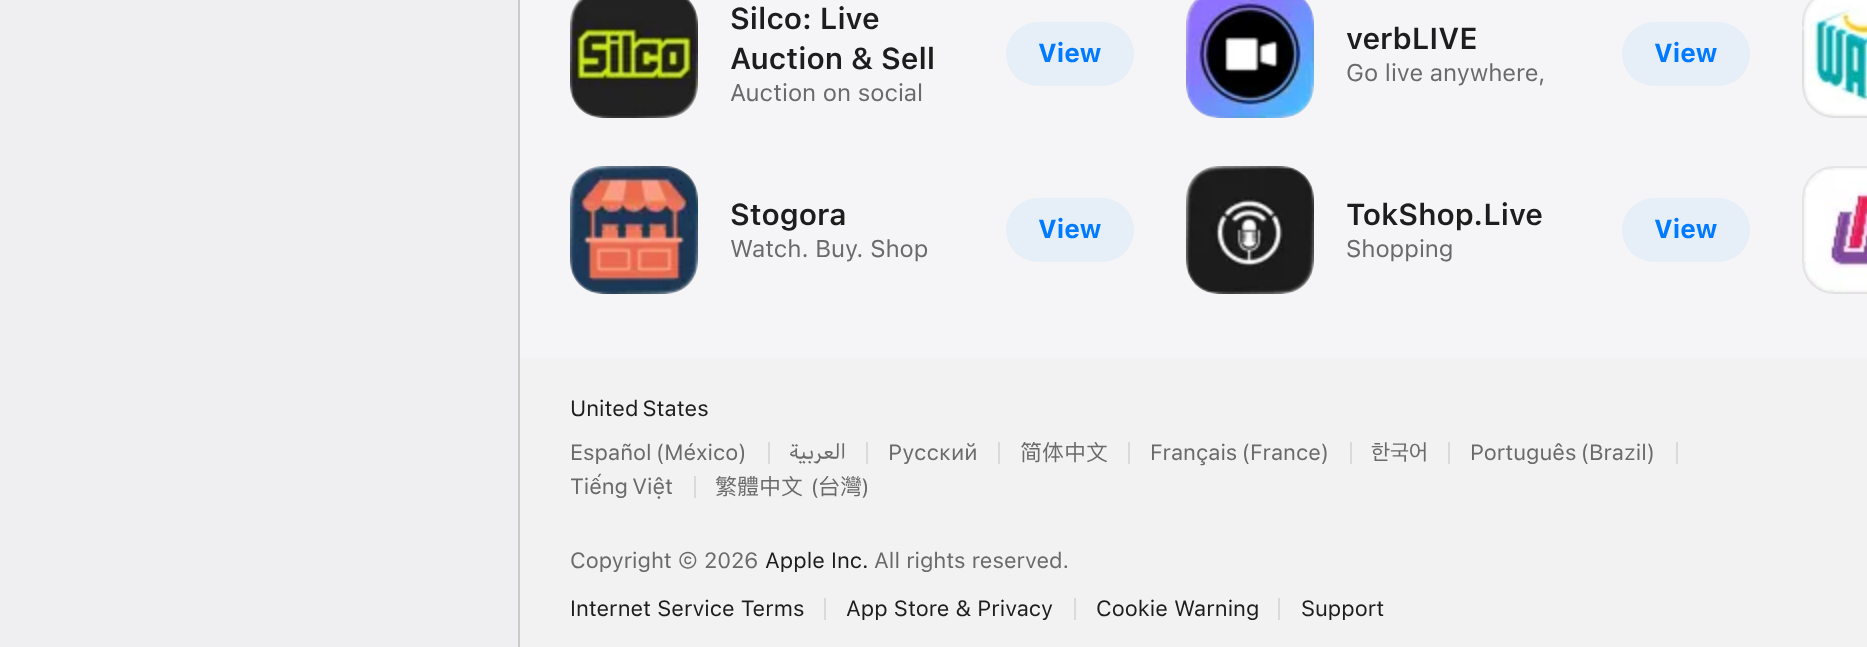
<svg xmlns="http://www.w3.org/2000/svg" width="1867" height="647">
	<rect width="100%" height="100%" fill="#F5F5F7" />
	<rect x="0" y="0" width="518" height="647" fill="#EFEFF2" />
	<rect x="518" y="0" width="2" height="647" fill="#CBCBCE" />
	<image x="570" y="0" width="128" height="118" href="assets/img1.png" />
	<rect x="571" y="-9" width="126" height="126" rx="31" fill="none" stroke="#808080" stroke-opacity="0.1" stroke-width="2" />
	<g font-family="SF" font-size="30" font-weight="600" fill="#1D1D1D">
		<text x="730" y="29">Silco: Live</text>
		<text x="730" y="69">Auction &amp; Sell</text>
	</g>
	<text x="730" y="101" font-family="SF" font-size="24" fill="#6A6A6A">Auction on social</text>
	<rect x="1006" y="22" width="128" height="64" rx="32" fill="#E6EEF7" />
	<text x="1038" y="62" font-family="SF" font-size="26" font-weight="700" fill="#007AFF">View</text>
	<image x="1186" y="0" width="128" height="118" href="assets/img2.png" />
	<rect x="1187" y="-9" width="126" height="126" rx="31" fill="none" stroke="#808080" stroke-opacity="0.1" stroke-width="2" />
	<text x="1346" y="49" font-family="SF" font-size="30" font-weight="600" fill="#1D1D1D">verbLIVE</text>
	<text x="1346" y="81" font-family="SF" font-size="24" fill="#6A6A6A">Go live anywhere,</text>
	<rect x="1622" y="22" width="128" height="64" rx="32" fill="#E6EEF7" />
	<text x="1654" y="62" font-family="SF" font-size="26" font-weight="700" fill="#007AFF">View</text>
	<image x="1802" y="0" width="65" height="118" href="assets/img3.png" />
	<rect x="1803" y="-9" width="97" height="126" rx="31" fill="none" stroke="#808080" stroke-opacity="0.1" stroke-width="2" />
	<image x="570" y="166" width="128" height="128" href="assets/img4.png" />
	<rect x="571" y="167" width="126" height="126" rx="31" fill="none" stroke="#808080" stroke-opacity="0.1" stroke-width="2" />
	<text x="730" y="225" font-family="SF" font-size="30" font-weight="600" fill="#1D1D1D">Stogora</text>
	<text x="730" y="257" font-family="SF" font-size="24" fill="#6A6A6A">Watch. Buy. Shop</text>
	<rect x="1006" y="198" width="128" height="64" rx="32" fill="#E6EEF7" />
	<text x="1038" y="238" font-family="SF" font-size="26" font-weight="700" fill="#007AFF">View</text>
	<image x="1186" y="166" width="128" height="128" href="assets/img5.png" />
	<rect x="1187" y="167" width="126" height="126" rx="31" fill="none" stroke="#808080" stroke-opacity="0.1" stroke-width="2" />
	<text x="1346" y="225" font-family="SF" font-size="30" font-weight="600" fill="#1D1D1D">TokShop.Live</text>
	<text x="1346" y="257" font-family="SF" font-size="24" fill="#6A6A6A">Shopping</text>
	<rect x="1622" y="198" width="128" height="64" rx="32" fill="#E6EEF7" />
	<text x="1654" y="238" font-family="SF" font-size="26" font-weight="700" fill="#007AFF">View</text>
	<image x="1802" y="166" width="65" height="128" href="assets/img6.png" />
	<rect x="1803" y="167" width="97" height="126" rx="31" fill="none" stroke="#808080" stroke-opacity="0.1" stroke-width="2" />
	<rect x="520" y="358" width="1347" height="289" fill="#F2F2F2" />
	<text x="570" y="416" word-spacing="-2" font-family="SF" font-size="22" fill="#1D1D1D">United States</text>
	<text x="570" y="460" word-spacing="-2" font-family="SF" font-size="22" fill="#6A6A6A">Español (México)</text>
	<rect x="768" y="442" width="2" height="22" fill="#DADADA" />
	<text x="846" y="460" font-family="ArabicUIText" font-size="22" direction="rtl" fill="#6A6A6A">العربية</text>
	<rect x="866" y="442" width="2" height="22" fill="#DADADA" />
	<text x="888" y="460" font-family="SF" font-size="22" fill="#6A6A6A">Русский</text>
	<rect x="998" y="442" width="2" height="22" fill="#DADADA" />
	<text x="1020" y="460" font-family="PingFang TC" font-size="22" fill="#6A6A6A">简体中文</text>
	<rect x="1128" y="442" width="2" height="22" fill="#DADADA" />
	<text x="1150" y="460" word-spacing="-2" font-family="SF" font-size="22" fill="#6A6A6A">Français (France)</text>
	<rect x="1350" y="442" width="2" height="22" fill="#DADADA" />
	<text x="1371" y="460" font-family="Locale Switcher" font-size="22" fill="#6A6A6A">한국어</text>
	<rect x="1448" y="442" width="2" height="22" fill="#DADADA" />
	<text x="1470" y="460" word-spacing="-2" font-family="SF" font-size="22" fill="#6A6A6A">Português (Brazil)</text>
	<rect x="1676" y="442" width="2" height="22" fill="#DADADA" />
	<text x="570" y="494" word-spacing="-2" font-family="SF" font-size="22" fill="#6A6A6A">Tiếng Việt</text>
	<rect x="694" y="476" width="2" height="22" fill="#DADADA" />
	<text x="715" y="494" font-family="PingFang TC" font-size="22" fill="#6A6A6A">繁體中文</text>
	<text x="811" y="494" font-family="'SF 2'" font-size="22" fill="#6A6A6A">(</text>
	<text x="818" y="494" font-family="PingFang TC" font-size="22" fill="#6A6A6A">台灣</text>
	<text x="862" y="494" font-family="'SF 2'" font-size="22" fill="#6A6A6A">)</text>
	<text x="570" y="568" font-family="SF" font-size="22" fill="#6A6A6A">Copyright © 2026</text>
	<text x="765" y="568" font-family="SF" font-size="22" fill="#1D1D1D">Apple Inc.</text>
	<text x="874" y="568" font-family="SF" font-size="22" fill="#6A6A6A">All rights reserved.</text>
	<text x="570" y="616" font-family="SF" font-size="22" fill="#1D1D1D">Internet Service Terms</text>
	<rect x="824" y="598" width="2" height="22" fill="#DADADA" />
	<text x="846" y="616" font-family="SF" font-size="22" fill="#1D1D1D">App Store &amp; Privacy</text>
	<rect x="1074" y="598" width="2" height="22" fill="#DADADA" />
	<text x="1096" y="616" font-family="SF" font-size="22" fill="#1D1D1D">Cookie Warning</text>
	<rect x="1278" y="598" width="2" height="22" fill="#DADADA" />
	<text x="1301" y="616" font-family="SF" font-size="22" fill="#1D1D1D">Support</text>
</svg>
